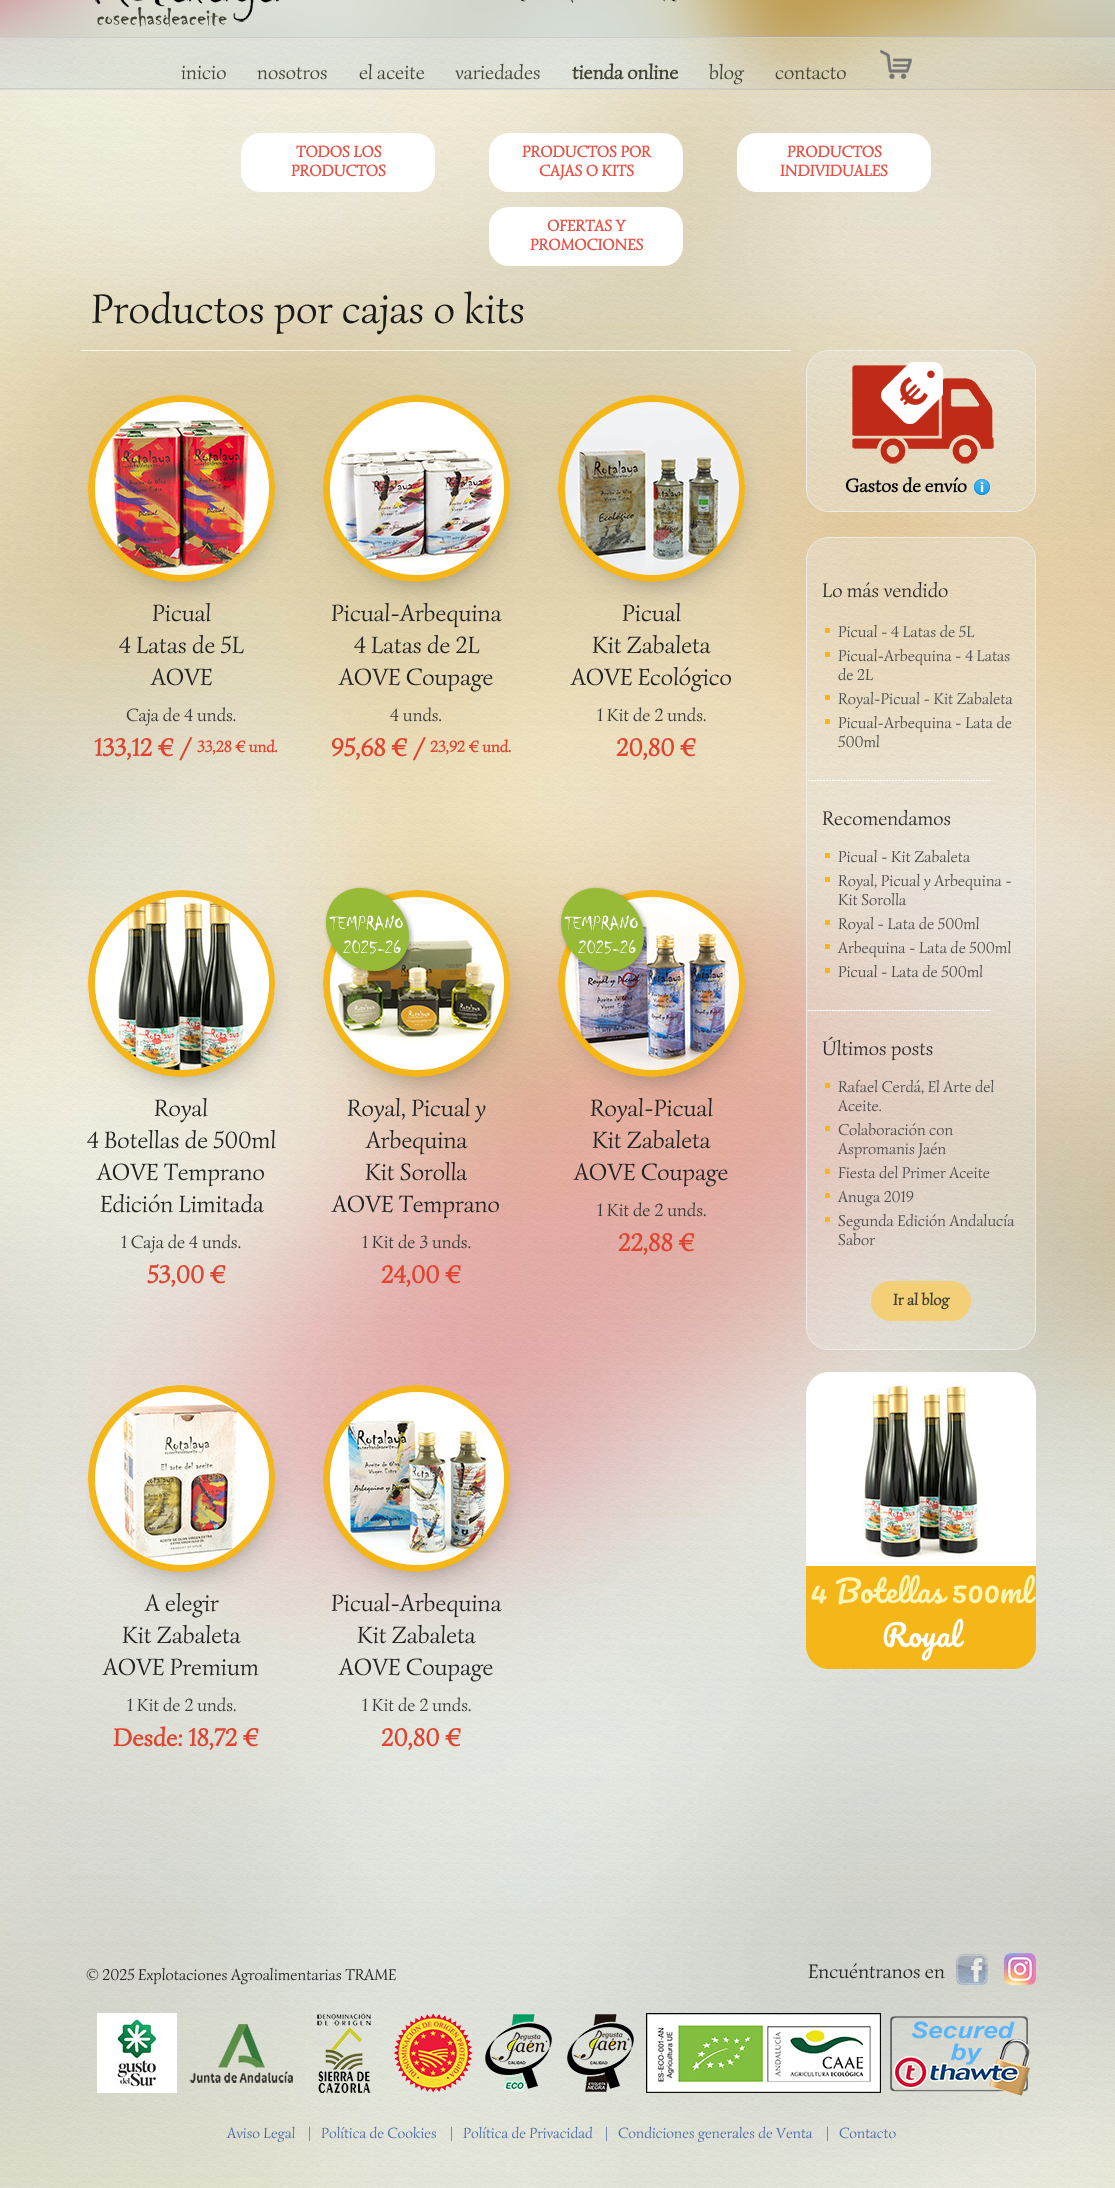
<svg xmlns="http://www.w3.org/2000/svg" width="1115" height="2188">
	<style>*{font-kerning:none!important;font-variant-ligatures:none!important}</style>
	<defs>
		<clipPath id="clip1"><rect x="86" y="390" width="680" height="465" /></clipPath>
		<clipPath id="clip2"><rect x="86" y="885" width="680" height="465" /></clipPath>
		<clipPath id="clip3"><rect x="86" y="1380" width="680" height="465" /></clipPath>
	</defs>
	<rect width="100%" height="100%" fill="#FFFFFF" />
	<image x="0" y="56" width="1115" height="2132" href="assets/img1.png" />
	<image x="0" y="56" width="1115" height="2132" href="assets/img2.png" />
	<image x="0" y="0" width="1115" height="90" href="assets/img3.png" />
	<image x="95" y="0" width="184" height="22" href="assets/img4.png" />
	<image x="96" y="7" width="131" height="20" href="assets/img5.png" />
	<image x="520" y="0" width="157" height="3" href="assets/img6.png" />
	<image x="0" y="38" width="1115" height="50" href="assets/img7.png" />
	<rect x="0" y="37" width="1115" height="1" fill="#CCCCCC" />
	<rect x="0" y="88" width="1115" height="1" fill="#CCCCCC" />
	<g font-family="Simonetta" font-size="20" fill="#424132">
		<text x="181" y="79">inicio</text>
		<text x="257" y="79">nosotros</text>
		<text x="359" y="79">el aceite</text>
		<text x="455" y="79">variedades</text>
	</g>
	<text x="572" y="79" font-family="Simonetta" font-size="20" font-weight="700" fill="#424132">tienda online</text>
	<g font-family="Simonetta" font-size="20" fill="#424132">
		<text x="709" y="79">blog</text>
		<text x="775" y="79">contacto</text>
	</g>
	<image x="880" y="50" width="32" height="29" href="assets/img8.png" />
	<rect x="241" y="133" width="194" height="59" rx="20" fill="#FFFFFF" />
	<g font-family="Simonetta" font-size="16" font-weight="700" fill="#E65246">
		<text x="296" y="157">TODOS LOS</text>
		<text x="291" y="176">PRODUCTOS</text>
	</g>
	<rect x="489" y="133" width="194" height="59" rx="20" fill="#FFFFFF" />
	<g font-family="Simonetta" font-size="16" font-weight="700" fill="#E65246">
		<text x="522" y="157">PRODUCTOS POR</text>
		<text x="539" y="176">CAJAS O KITS</text>
	</g>
	<rect x="737" y="133" width="194" height="59" rx="20" fill="#FFFFFF" />
	<g font-family="Simonetta" font-size="16" font-weight="700" fill="#E65246">
		<text x="787" y="157">PRODUCTOS</text>
		<text x="780" y="176">INDIVIDUALES</text>
	</g>
	<rect x="489" y="207" width="194" height="59" rx="20" fill="#FFFFFF" />
	<g font-family="Simonetta" font-size="16" font-weight="700" fill="#E65246">
		<text x="547" y="231">OFERTAS Y</text>
		<text x="530" y="250">PROMOCIONES</text>
	</g>
	<text x="91" y="323" font-family="Simonetta" font-size="42" fill="#191919">Productos por cajas o kits</text>
	<rect x="81" y="350" width="710" height="1" fill="#FFFFFF" fill-opacity="0.75" />
	<g clip-path="url(#clip1)">
		<rect x="123" y="440" width="127" height="127" rx="63.5" fill="#181818" filter="blur(19px)" />
	</g>
	<image x="88" y="395" width="187" height="187" href="assets/img9.png" />
	<g font-family="Simonetta" font-size="24" fill="#222222">
		<text x="152" y="621">Picual</text>
		<text x="119" y="653">4 Latas de 5L</text>
		<text x="151" y="685">AOVE</text>
	</g>
	<text x="126" y="721" font-family="Simonetta" font-size="18" fill="#383838">Caja de 4 unds.</text>
	<text x="94" y="756" font-family="Simonetta" font-size="25" font-weight="700" fill="#DE4430">133,12 € /</text>
	<text x="197" y="752" font-family="Simonetta" font-size="16" font-weight="700" fill="#DE4430">33,28 € und.</text>
	<rect x="358" y="440" width="127" height="127" rx="63.5" fill="#181818" filter="blur(19px)" />
	<image x="323" y="395" width="187" height="187" href="assets/img10.png" />
	<g font-family="Simonetta" font-size="24" fill="#222222">
		<text x="331" y="621">Picual-Arbequina</text>
		<text x="354" y="653">4 Latas de 2L</text>
		<text x="339" y="685">AOVE Coupage</text>
	</g>
	<text x="390" y="721" font-family="Simonetta" font-size="18" fill="#383838">4 unds.</text>
	<text x="331" y="756" font-family="Simonetta" font-size="25" font-weight="700" fill="#DE4430">95,68 € /</text>
	<text x="430" y="752" font-family="Simonetta" font-size="16" font-weight="700" fill="#DE4430">23,92 € und.</text>
	<rect x="593" y="440" width="127" height="127" rx="63.5" fill="#181818" filter="blur(19px)" />
	<image x="558" y="395" width="187" height="187" href="assets/img11.png" />
	<g font-family="Simonetta" font-size="24" fill="#222222">
		<text x="622" y="621">Picual</text>
		<text x="592" y="653">Kit Zabaleta</text>
		<text x="571" y="685">AOVE Ecológico</text>
	</g>
	<text x="597" y="721" font-family="Simonetta" font-size="18" fill="#383838">1 Kit de 2 unds.</text>
	<text x="616" y="756" font-family="Simonetta" font-size="25" font-weight="700" fill="#DE4430">20,80 €</text>
	<g clip-path="url(#clip2)">
		<rect x="123" y="935" width="127" height="127" rx="63.5" fill="#181818" filter="blur(19px)" />
	</g>
	<image x="88" y="890" width="187" height="187" href="assets/img12.png" />
	<g font-family="Simonetta" font-size="24" fill="#222222">
		<text x="154" y="1116">Royal</text>
		<text x="87" y="1148">4 Botellas de 500ml</text>
		<text x="97" y="1180">AOVE Temprano</text>
		<text x="100" y="1212">Edición Limitada</text>
	</g>
	<text x="121" y="1248" font-family="Simonetta" font-size="18" fill="#383838">1 Caja de 4 unds.</text>
	<text x="147" y="1283" font-family="Simonetta" font-size="25" font-weight="700" fill="#DE4430">53,00 €</text>
	<rect x="358" y="935" width="127" height="127" rx="63.5" fill="#181818" filter="blur(19px)" />
	<image x="323" y="890" width="187" height="187" href="assets/img14.png" />
	<image x="324" y="886" width="90" height="90" href="assets/img13.png" />
	<g font-family="Simonetta" font-size="24" fill="#222222">
		<text x="347" y="1116">Royal, Picual y</text>
		<text x="366" y="1148">Arbequina</text>
		<text x="365" y="1180">Kit Sorolla</text>
		<text x="332" y="1212">AOVE Temprano</text>
	</g>
	<text x="362" y="1248" font-family="Simonetta" font-size="18" fill="#383838">1 Kit de 3 unds.</text>
	<text x="381" y="1283" font-family="Simonetta" font-size="25" font-weight="700" fill="#DE4430">24,00 €</text>
	<rect x="593" y="935" width="127" height="127" rx="63.5" fill="#181818" filter="blur(19px)" />
	<image x="558" y="890" width="187" height="187" href="assets/img16.png" />
	<image x="559" y="886" width="90" height="90" href="assets/img15.png" />
	<g font-family="Simonetta" font-size="24" fill="#222222">
		<text x="590" y="1116">Royal-Picual</text>
		<text x="592" y="1148">Kit Zabaleta</text>
		<text x="574" y="1180">AOVE Coupage</text>
	</g>
	<text x="597" y="1216" font-family="Simonetta" font-size="18" fill="#383838">1 Kit de 2 unds.</text>
	<text x="618" y="1251" font-family="Simonetta" font-size="25" font-weight="700" fill="#DE4430">22,88 €</text>
	<g clip-path="url(#clip3)">
		<rect x="123" y="1430" width="127" height="127" rx="63.5" fill="#181818" filter="blur(19px)" />
	</g>
	<image x="88" y="1385" width="187" height="187" href="assets/img17.png" />
	<g font-family="Simonetta" font-size="24" fill="#222222">
		<text x="145" y="1611">A elegir</text>
		<text x="122" y="1643">Kit Zabaleta</text>
		<text x="103" y="1675">AOVE Premium</text>
	</g>
	<text x="127" y="1711" font-family="Simonetta" font-size="18" fill="#383838">1 Kit de 2 unds.</text>
	<text x="113" y="1746" font-family="Simonetta" font-size="25" font-weight="700" fill="#DE4430">Desde: 18,72 €</text>
	<rect x="358" y="1430" width="127" height="127" rx="63.5" fill="#181818" filter="blur(19px)" />
	<image x="323" y="1385" width="187" height="187" href="assets/img18.png" />
	<g font-family="Simonetta" font-size="24" fill="#222222">
		<text x="331" y="1611">Picual-Arbequina</text>
		<text x="357" y="1643">Kit Zabaleta</text>
		<text x="339" y="1675">AOVE Coupage</text>
	</g>
	<text x="362" y="1711" font-family="Simonetta" font-size="18" fill="#383838">1 Kit de 2 unds.</text>
	<text x="381" y="1746" font-family="Simonetta" font-size="25" font-weight="700" fill="#DE4430">20,80 €</text>
	<image x="806" y="350" width="230" height="162" href="assets/img19.png" />
	<rect x="806.5" y="350.5" width="229" height="161" rx="22.5" fill="none" stroke="#EBEBEB" />
	<image x="852" y="362" width="142" height="102" href="assets/img20.png" />
	<text x="845" y="492" font-family="Simonetta" font-size="19" font-weight="700" fill="#000000">Gastos de envío</text>
	<image x="974" y="479" width="16" height="16" href="assets/img21.png" />
	<image x="806" y="537" width="230" height="813" href="assets/img22.png" />
	<rect x="806.5" y="537.5" width="229" height="812" rx="22.5" fill="none" stroke="#EBEBEB" />
	<text x="822" y="597" font-family="Simonetta" font-size="20" fill="#2C2C2C">Lo más vendido</text>
	<image x="807" y="780" width="184" height="1" href="assets/img23.png" />
	<rect x="825" y="628" width="5" height="5" fill="#F5B61A" />
	<text x="838" y="637" font-family="Simonetta" font-size="16" fill="#4D4D4C">Picual - 4 Latas de 5L</text>
	<rect x="825" y="652" width="5" height="5" fill="#F5B61A" />
	<g font-family="Simonetta" font-size="16" fill="#4D4D4C">
		<text x="838" y="661">Picual-Arbequina - 4 Latas</text>
		<text x="838" y="680">de 2L</text>
	</g>
	<rect x="825" y="695" width="5" height="5" fill="#F5B61A" />
	<text x="838" y="704" font-family="Simonetta" font-size="16" fill="#4D4D4C">Royal-Picual - Kit Zabaleta</text>
	<rect x="825" y="719" width="5" height="5" fill="#F5B61A" />
	<g font-family="Simonetta" font-size="16" fill="#4D4D4C">
		<text x="838" y="728">Picual-Arbequina - Lata de</text>
		<text x="838" y="747">500ml</text>
	</g>
	<text x="822" y="825" font-family="Simonetta" font-size="20" fill="#2C2C2C">Recomendamos</text>
	<image x="807" y="1010" width="184" height="1" href="assets/img23.png" />
	<rect x="825" y="853" width="5" height="5" fill="#F5B61A" />
	<text x="838" y="862" font-family="Simonetta" font-size="16" fill="#4D4D4C">Picual - Kit Zabaleta</text>
	<rect x="825" y="877" width="5" height="5" fill="#F5B61A" />
	<g font-family="Simonetta" font-size="16" fill="#4D4D4C">
		<text x="838" y="886">Royal, Picual y Arbequina -</text>
		<text x="838" y="905">Kit Sorolla</text>
	</g>
	<rect x="825" y="920" width="5" height="5" fill="#F5B61A" />
	<text x="838" y="929" font-family="Simonetta" font-size="16" fill="#4D4D4C">Royal - Lata de 500ml</text>
	<rect x="825" y="944" width="5" height="5" fill="#F5B61A" />
	<text x="838" y="953" font-family="Simonetta" font-size="16" fill="#4D4D4C">Arbequina - Lata de 500ml</text>
	<rect x="825" y="968" width="5" height="5" fill="#F5B61A" />
	<text x="838" y="977" font-family="Simonetta" font-size="16" fill="#4D4D4C">Picual - Lata de 500ml</text>
	<text x="822" y="1055" font-family="Simonetta" font-size="20" fill="#2C2C2C">Últimos posts</text>
	<rect x="825" y="1083" width="5" height="5" fill="#F5B61A" />
	<g font-family="Simonetta" font-size="16" fill="#4D4D4C">
		<text x="838" y="1092">Rafael Cerdá, El Arte del</text>
		<text x="838" y="1111">Aceite.</text>
	</g>
	<rect x="825" y="1126" width="5" height="5" fill="#F5B61A" />
	<g font-family="Simonetta" font-size="16" fill="#4D4D4C">
		<text x="838" y="1135">Colaboración con</text>
		<text x="838" y="1154">Aspromanis Jaén</text>
	</g>
	<rect x="825" y="1169" width="5" height="5" fill="#F5B61A" />
	<text x="838" y="1178" font-family="Simonetta" font-size="16" fill="#4D4D4C">Fiesta del Primer Aceite</text>
	<rect x="825" y="1193" width="5" height="5" fill="#F5B61A" />
	<text x="838" y="1202" font-family="Simonetta" font-size="16" fill="#4D4D4C">Anuga 2019</text>
	<rect x="825" y="1217" width="5" height="5" fill="#F5B61A" />
	<g font-family="Simonetta" font-size="16" fill="#4D4D4C">
		<text x="838" y="1226">Segunda Edición Andalucía</text>
		<text x="838" y="1245">Sabor</text>
	</g>
	<rect x="871" y="1281" width="100" height="40" rx="20" fill="#F3CF78" />
	<text x="893" y="1305" font-family="Simonetta" font-size="16" font-weight="700" fill="#424132">Ir al blog</text>
	<image x="806" y="1372" width="230" height="194" href="assets/img24.png" />
	<path d="M806 1566H1036V1646C1036 1658.5 1025.5 1669 1013 1669H829C816.5 1669 806 1658.5 806 1646Z" fill="#F5B61A" />
	<text x="810" y="1603" font-family="Pacifico" font-size="30" fill="#FAF5B4">4 Botellas 500ml</text>
	<text x="882" y="1647" font-family="Pacifico" font-size="30" fill="#FFFFFF">Royal</text>
	<text x="86" y="1980" font-family="Simonetta" font-size="16" fill="#222222">© 2025 Explotaciones Agroalimentarias TRAME</text>
	<text x="808" y="1978" font-family="Simonetta" font-size="20" fill="#222222">Encuéntranos en</text>
	<image x="956" y="1954" width="32" height="31" href="assets/img25.png" />
	<image x="1004" y="1953" width="32" height="32" href="assets/img26.png" />
	<image x="97" y="2013" width="80" height="80" href="assets/img27.png" />
	<image x="189" y="2024" width="104" height="59" href="assets/img28.png" />
	<image x="317" y="2013" width="54" height="80" href="assets/img29.png" />
	<image x="393" y="2013" width="80" height="80" href="assets/img30.png" />
	<image x="485" y="2014" width="67" height="78" href="assets/img31.png" />
	<image x="567" y="2014" width="67" height="78" href="assets/img32.png" />
	<image x="646" y="2013" width="235" height="80" href="assets/img33.png" />
	<image x="890" y="2016" width="141" height="80" href="assets/img34.png" />
	<g font-family="Simonetta" font-size="15" fill="#4A6BA5">
		<text x="227" y="2138">Aviso Legal</text>
		<text x="308" y="2138" xml:space="preserve">|   Política de Cookies</text>
		<text x="450" y="2138" xml:space="preserve">|   Política de Privacidad</text>
		<text x="605" y="2138" xml:space="preserve">|   Condiciones generales de Venta</text>
		<text x="826" y="2138" xml:space="preserve">|   Contacto</text>
	</g>
</svg>
